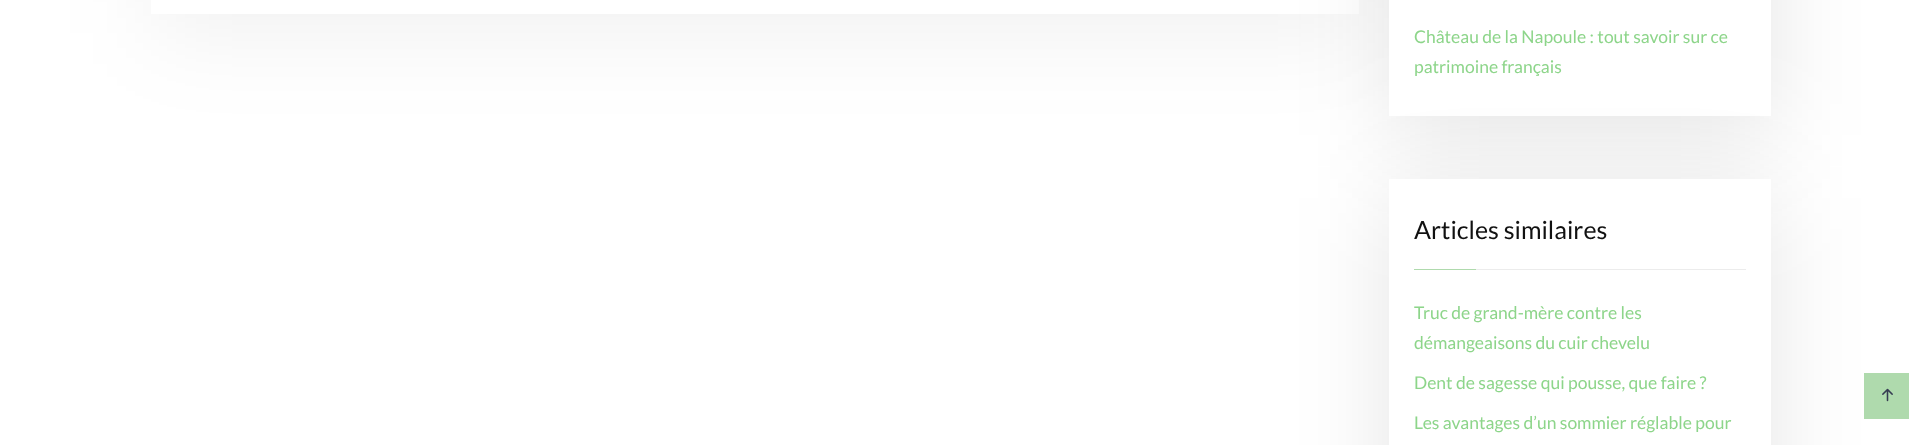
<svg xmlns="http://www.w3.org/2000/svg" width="1922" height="445">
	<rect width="100%" height="100%" fill="#FFFFFF" />
	<rect x="151" y="-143" width="1208" height="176" fill="#000000" fill-opacity="0.06" filter="blur(47.5px)" />
	<rect x="151" y="0" width="1208" height="14" fill="#FFFFFF" />
	<rect x="1389" y="-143" width="382" height="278" fill="#000000" fill-opacity="0.1" filter="blur(47.5px)" />
	<rect x="1389" y="0" width="382" height="116" fill="#FFFFFF" />
	<text x="1414" y="43" font-family="Lato" font-size="17.5" fill="#8DD58A">Château de la Napoule : tout savoir sur ce</text>
	<rect x="1389" y="198" width="382" height="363" fill="#000000" fill-opacity="0.1" filter="blur(47.5px)" />
	<text x="1414" y="73" font-family="Lato" font-size="17.5" fill="#8DD58A">patrimoine français</text>
	<rect x="1389" y="179" width="382" height="266" fill="#FFFFFF" />
	<text x="1414" y="239" font-family="Lato" font-size="25" fill="#111111">Articles similaires</text>
	<rect x="1414" y="269" width="62" height="1" fill="#AFDAAD" />
	<rect x="1476" y="269" width="270" height="1" fill="#ECECEC" />
	<g font-family="Lato" font-size="17.5" fill="#8DD58A">
		<text x="1414" y="319">Truc de grand-mère contre les</text>
		<text x="1414" y="349">démangeaisons du cuir chevelu</text>
		<text x="1414" y="389">Dent de sagesse qui pousse, que faire ?</text>
		<text x="1414" y="429">Les avantages d’un sommier réglable pour</text>
	</g>
	<rect x="1864" y="373" width="45" height="46" fill="#AFDAAD" />
	<image x="1882" y="388" width="11" height="14" href="assets/img1.png" />
</svg>
